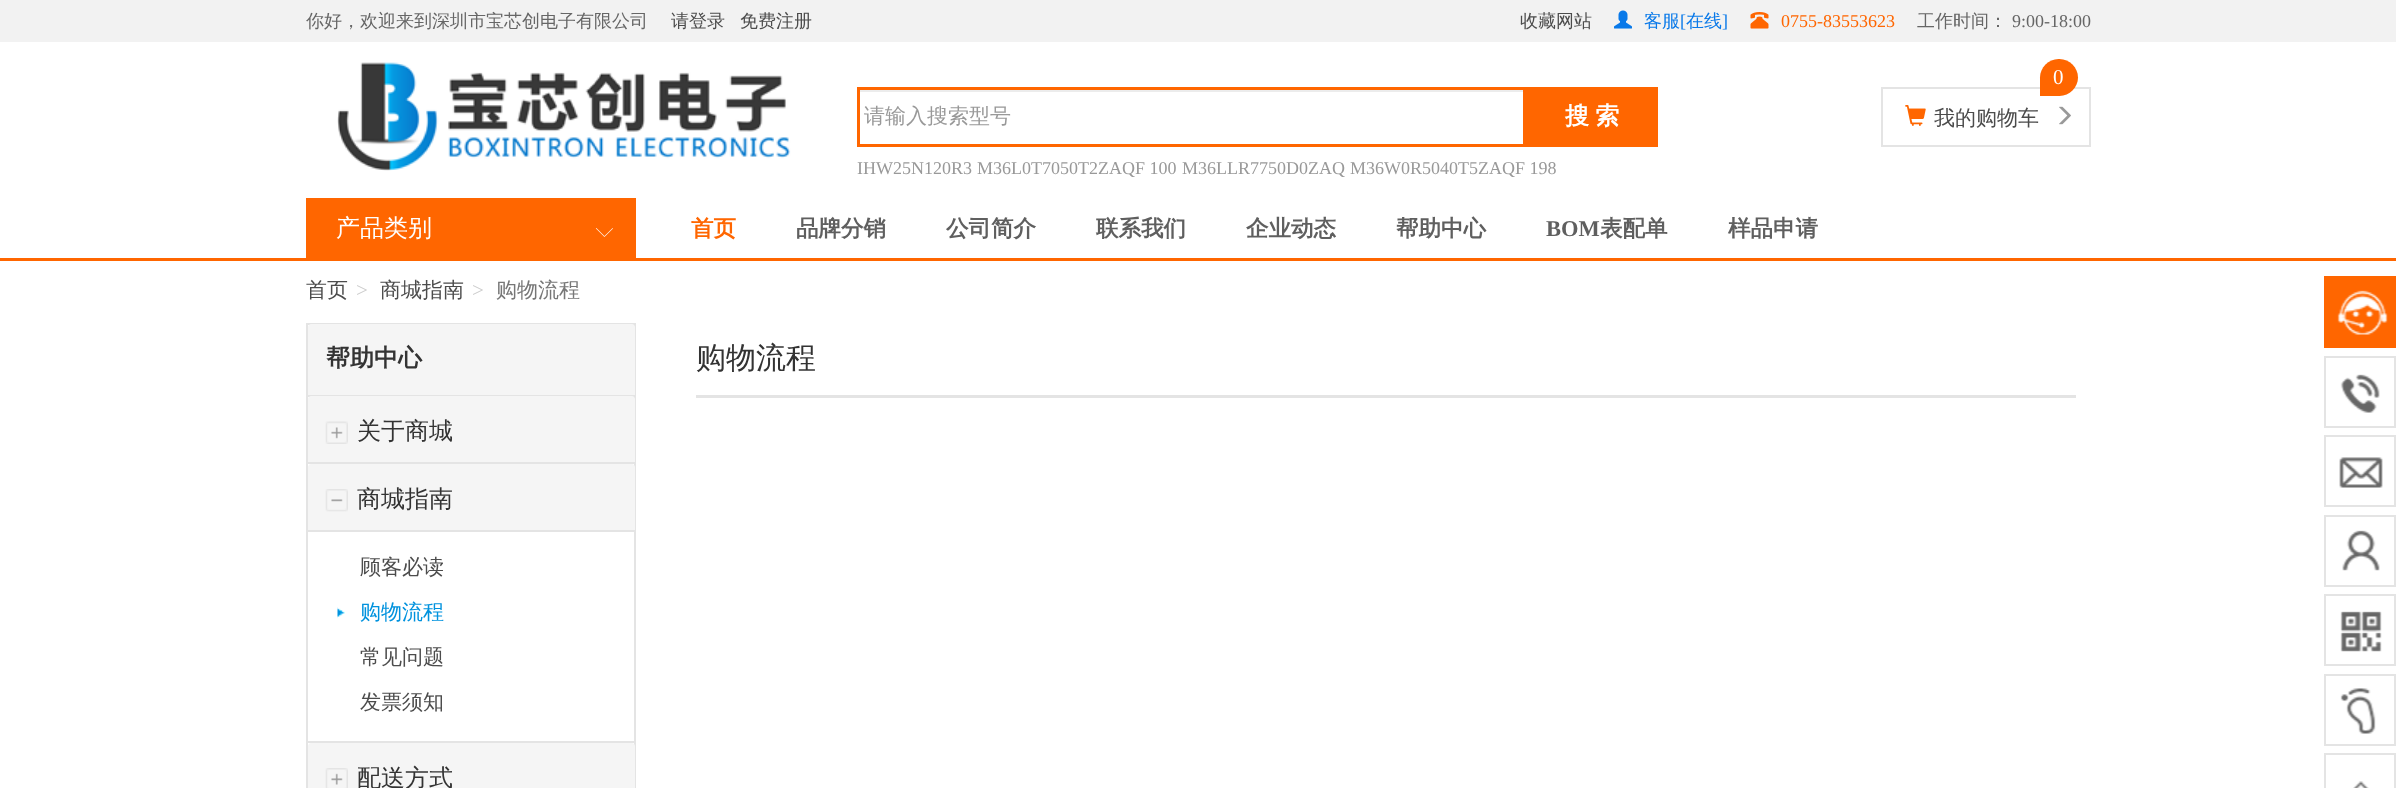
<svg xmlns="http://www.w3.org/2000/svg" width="2396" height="788">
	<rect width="100%" height="100%" fill="#FFFFFF" />
	<rect x="0" y="0" width="2396" height="42" fill="#F2F2F2" />
	<text x="306" y="27" font-family="WenQuanYi Zen Hei" font-size="18" font-weight="500" fill="#666666">你好，欢迎来到深圳市宝芯创电子有限公司</text>
	<g font-family="WenQuanYi Zen Hei" font-size="18" font-weight="500" fill="#4C4C4C">
		<text x="671" y="27">请登录</text>
		<text x="740" y="27">免费注册</text>
		<text x="1520" y="27">收藏网站</text>
	</g>
	<image x="1614" y="10" width="18" height="19" href="assets/img1.png" />
	<text x="1644" y="27" font-family="WenQuanYi Zen Hei" font-size="18" font-weight="500" fill="#0979E9">客服</text>
	<text x="1680" y="27" font-family="Liberation Serif" font-size="18" fill="#0979E9">[</text>
	<text x="1686" y="27" font-family="WenQuanYi Zen Hei" font-size="18" font-weight="500" fill="#0979E9">在线</text>
	<text x="1722" y="27" font-family="Liberation Serif" font-size="18" fill="#0979E9">]</text>
	<image x="1750" y="12" width="19" height="17" href="assets/img2.png" />
	<text x="1781" y="27" font-family="Liberation Serif" font-size="18" fill="#FF6600">0755-83553623</text>
	<text x="1917" y="27" font-family="WenQuanYi Zen Hei" font-size="18" font-weight="500" fill="#666666">工作时间：</text>
	<text x="2012" y="27" font-family="Liberation Serif" font-size="18" fill="#666666">9:00-18:00</text>
	<image x="337" y="62" width="454" height="109" href="assets/img3.png" />
	<rect x="860" y="90" width="663" height="2" fill="#ECECEC" />
	<rect x="858.5" y="88.5" width="666" height="57" fill="none" stroke="#FF6600" stroke-width="3" />
	<text x="864" y="123" font-family="WenQuanYi Zen Hei" font-size="21" font-weight="500" fill="#999999">请输入搜索型号</text>
	<rect x="1526" y="87" width="132" height="60" fill="#FF6600" />
	<text x="1565" y="124" word-spacing="-1" font-family="WenQuanYi Zen Hei" font-size="24" font-weight="700" fill="#FFFFFF">搜 索</text>
	<g font-family="Liberation Serif" font-size="18" fill="#999999">
		<text x="857" y="174">IHW25N120R3</text>
		<text x="977" y="174">M36L0T7050T2ZAQF 100</text>
		<text x="1182" y="174">M36LLR7750D0ZAQ</text>
		<text x="1350" y="174">M36W0R5040T5ZAQF 198</text>
	</g>
	<rect x="1882" y="88" width="208" height="58" fill="none" stroke="#E4E4E4" stroke-width="2" />
	<path d="M2058.5 59H2059.5C2069.5 59 2078 67.5 2078 77.5C2078 87.5 2069.5 96 2059.5 96H2040V77.5C2040 67.5 2048.5 59 2058.5 59Z" fill="#FF6600" />
	<text x="2053" y="84" font-family="Liberation Serif" font-size="21" fill="#FFFFFF">0</text>
	<image x="1905" y="105" width="21" height="21" href="assets/img4.png" />
	<text x="1934" y="125" font-family="WenQuanYi Zen Hei" font-size="21" font-weight="500" fill="#4C4C4C">我的购物车</text>
	<image x="2059" y="106" width="12" height="19" href="assets/img5.png" />
	<rect x="0" y="258" width="2396" height="3" fill="#FF6600" />
	<rect x="306" y="198" width="330" height="60" fill="#FF6600" />
	<text x="336" y="236" font-family="WenQuanYi Zen Hei" font-size="24" font-weight="500" fill="#FFFFFF">产品类别</text>
	<image x="595" y="228" width="18" height="9" href="assets/img6.png" />
	<text x="691" y="236" font-family="WenQuanYi Zen Hei" font-size="22.5" font-weight="700" fill="#FF6600">首页</text>
	<g font-family="WenQuanYi Zen Hei" font-size="22.5" font-weight="700" fill="#5F5F5F">
		<text x="796" y="236">品牌分销</text>
		<text x="946" y="236">公司简介</text>
		<text x="1096" y="236">联系我们</text>
		<text x="1246" y="236">企业动态</text>
		<text x="1396" y="236">帮助中心</text>
	</g>
	<text x="1546" y="236" font-family="Liberation Serif" font-size="22.5" font-weight="700" fill="#5F5F5F">BOM</text>
	<g font-family="WenQuanYi Zen Hei" font-size="22.5" font-weight="700" fill="#5F5F5F">
		<text x="1600" y="236">表配单</text>
		<text x="1728" y="236">样品申请</text>
	</g>
	<text x="306" y="297" font-family="WenQuanYi Zen Hei" font-size="21" font-weight="500" fill="#4C4C4C">首页</text>
	<text x="356" y="297" font-family="Liberation Serif" font-size="21" fill="#CCCCCC">&gt;</text>
	<text x="380" y="297" font-family="WenQuanYi Zen Hei" font-size="21" font-weight="500" fill="#4C4C4C">商城指南</text>
	<text x="472" y="297" font-family="Liberation Serif" font-size="21" fill="#CCCCCC">&gt;</text>
	<text x="496" y="297" font-family="WenQuanYi Zen Hei" font-size="21" font-weight="500" fill="#777777">购物流程</text>
	<rect x="307" y="324" width="328" height="71" fill="none" stroke="#E4E4E4" stroke-width="2" />
	<path d="M311 324H632C633.5 324 635 325.5 635 327V395H308V327C308 325.5 309.5 324 311 324Z" fill="#F5F5F5" />
	<text x="326" y="366" font-family="WenQuanYi Zen Hei" font-size="24" font-weight="700" fill="#333333">帮助中心</text>
	<rect x="307" y="396" width="328" height="67" fill="none" stroke="#E4E4E4" stroke-width="2" />
	<path d="M311 396H632C633.5 396 635 397.5 635 399V462H308V399C308 397.5 309.5 396 311 396Z" fill="#F5F5F5" />
	<image x="325" y="421" width="23" height="23" href="assets/img7.png" />
	<text x="357" y="439" font-family="WenQuanYi Zen Hei" font-size="24" font-weight="500" fill="#333333">关于商城</text>
	<rect x="307" y="463" width="328" height="279" fill="none" stroke="#E4E4E4" stroke-width="2" />
	<path d="M311 464H632C633.5 464 635 465.5 635 467V530H308V467C308 465.5 309.5 464 311 464Z" fill="#F5F5F5" />
	<image x="325" y="489" width="23" height="23" href="assets/img8.png" />
	<text x="357" y="507" font-family="WenQuanYi Zen Hei" font-size="24" font-weight="500" fill="#333333">商城指南</text>
	<rect x="308" y="530" width="327" height="2" fill="#E4E4E4" />
	<text x="360" y="574" font-family="WenQuanYi Zen Hei" font-size="21" font-weight="500" fill="#4C4C4C">顾客必读</text>
	<image x="337" y="607" width="8" height="12" href="assets/img9.png" />
	<text x="360" y="619" font-family="WenQuanYi Zen Hei" font-size="21" font-weight="500" fill="#0092DE">购物流程</text>
	<g font-family="WenQuanYi Zen Hei" font-size="21" font-weight="500" fill="#4C4C4C">
		<text x="360" y="664">常见问题</text>
		<text x="360" y="709">发票须知</text>
	</g>
	<rect x="307" y="742" width="328" height="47" fill="none" stroke="#E4E4E4" stroke-width="2" />
	<path d="M311 743H632C633.5 743 635 744.5 635 746V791H308V746C308 744.5 309.5 743 311 743Z" fill="#F5F5F5" />
	<image x="325" y="768" width="23" height="20" href="assets/img10.png" />
	<text x="357" y="786" font-family="WenQuanYi Zen Hei" font-size="24" font-weight="500" fill="#333333">配送方式</text>
	<rect x="696" y="395" width="1380" height="3" fill="#E4E4E4" />
	<text x="696" y="368" font-family="WenQuanYi Zen Hei" font-size="30" font-weight="500" fill="#333333">购物流程</text>
	<rect x="2324" y="276" width="72" height="72" fill="#FF6600" />
	<image x="2337" y="290" width="51" height="45" href="assets/img11.png" />
	<image x="2340" y="374" width="40" height="39" href="assets/img12.png" />
	<rect x="2325" y="357" width="70" height="70" fill="none" stroke="#E4E4E4" stroke-width="2" />
	<image x="2339" y="457" width="44" height="31" href="assets/img13.png" />
	<rect x="2325" y="436" width="70" height="70" fill="none" stroke="#E4E4E4" stroke-width="2" />
	<image x="2342" y="530" width="38" height="41" href="assets/img14.png" />
	<rect x="2325" y="516" width="70" height="70" fill="none" stroke="#E4E4E4" stroke-width="2" />
	<image x="2340" y="611" width="42" height="41" href="assets/img15.png" />
	<rect x="2325" y="595" width="70" height="70" fill="none" stroke="#E4E4E4" stroke-width="2" />
	<image x="2340" y="688" width="36" height="46" href="assets/img16.png" />
	<rect x="2325" y="675" width="70" height="70" fill="none" stroke="#E4E4E4" stroke-width="2" />
	<image x="2353" y="781" width="16" height="7" href="assets/img17.png" />
	<rect x="2325" y="754" width="70" height="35" fill="none" stroke="#E4E4E4" stroke-width="2" />
</svg>
